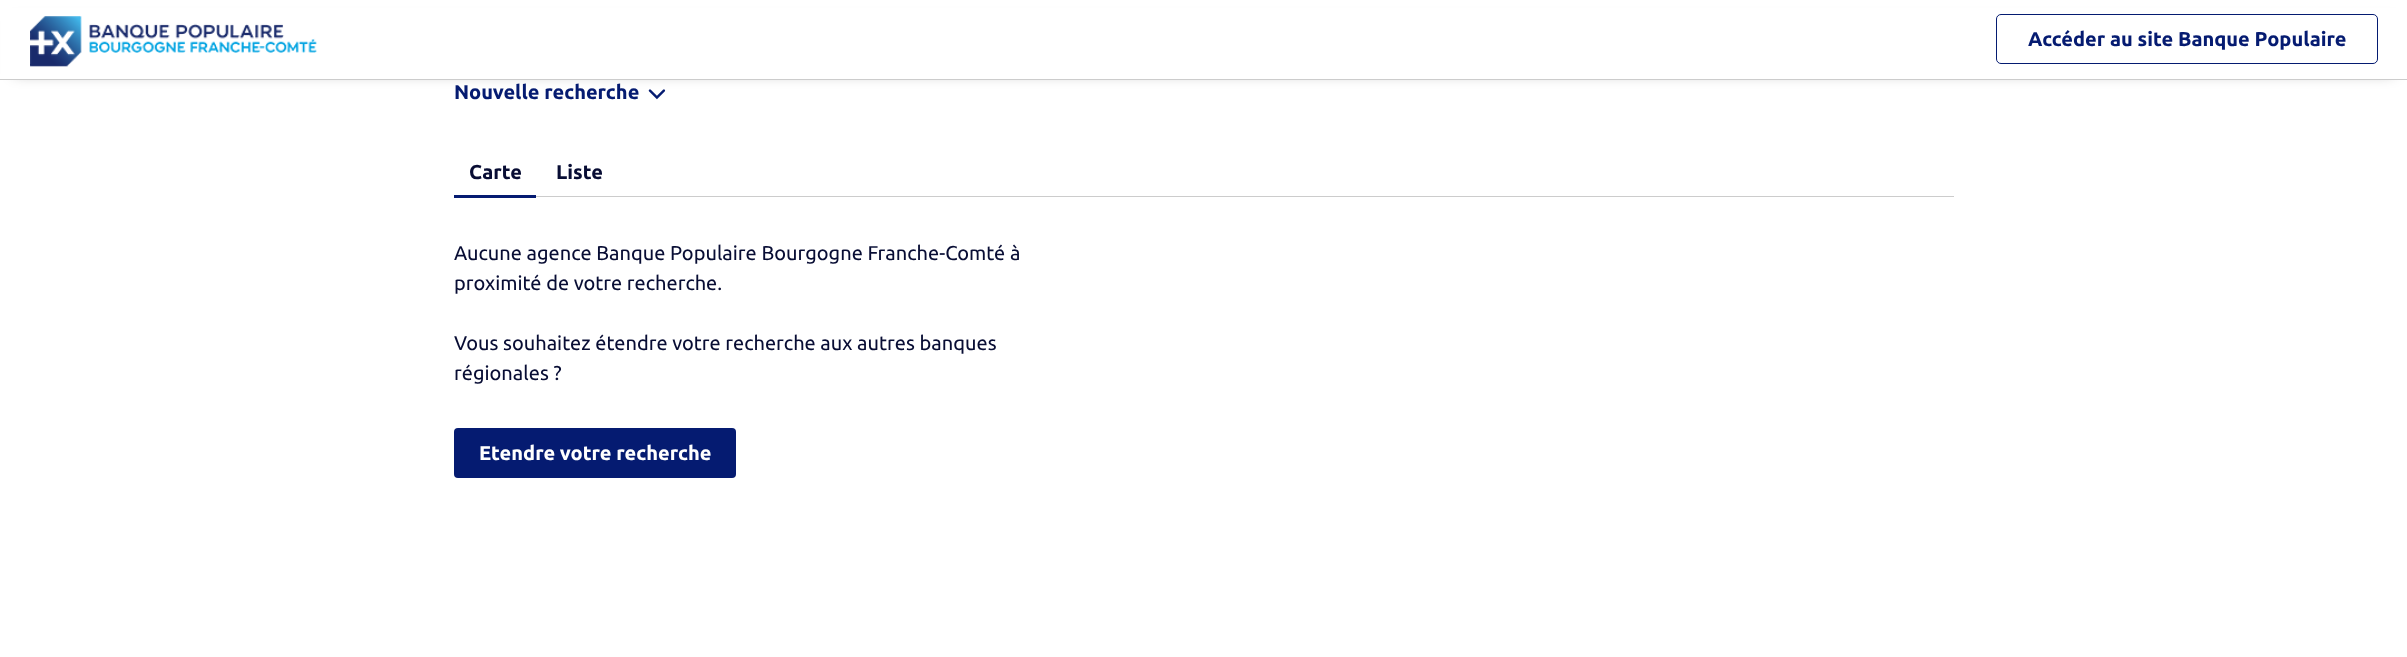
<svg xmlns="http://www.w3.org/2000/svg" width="2407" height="657">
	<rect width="100%" height="100%" fill="#FFFFFF" />
	<image x="648" y="89" width="18" height="11" href="assets/img2.png" />
	<rect x="14" y="21" width="2380" height="53" fill="#000000" fill-opacity="0.3" filter="blur(7px)" />
	<rect x="1" y="8" width="2406" height="71" fill="#FFFFFF" />
	<rect x="0" y="79" width="2407" height="1" fill="#CCCCCC" />
	<image x="30" y="16" width="287" height="51" href="assets/img1.png" />
	<rect x="1996.5" y="14.5" width="381" height="49" rx="4.5" fill="none" stroke="#051B71" />
	<g font-family="Ubuntu" font-size="20" font-weight="700" fill="#051B71">
		<text x="2028" y="46">Accéder au site Banque Populaire</text>
		<text x="454" y="99">Nouvelle recherche</text>
	</g>
	<rect x="536" y="196" width="1418" height="1" fill="#CCCCCC" />
	<text x="469" y="179" font-family="Ubuntu" font-size="20" font-weight="700" fill="#080D34">Carte</text>
	<rect x="454" y="195" width="82" height="3" fill="#051B71" />
	<text x="556" y="179" font-family="Ubuntu" font-size="20" font-weight="700" fill="#080D34">Liste</text>
	<g font-family="Ubuntu" font-size="20" fill="#080D34">
		<text x="454" y="260">Aucune agence Banque Populaire Bourgogne Franche-Comté à</text>
		<text x="454" y="290">proximité de votre recherche.</text>
		<text x="454" y="350">Vous souhaitez étendre votre recherche aux autres banques</text>
		<text x="454" y="380">régionales ?</text>
	</g>
	<rect x="454" y="428" width="282" height="50" rx="4" fill="#051B71" />
	<text x="479" y="460" font-family="Ubuntu" font-size="20" font-weight="700" fill="#FFFFFF">Etendre votre recherche</text>
</svg>
